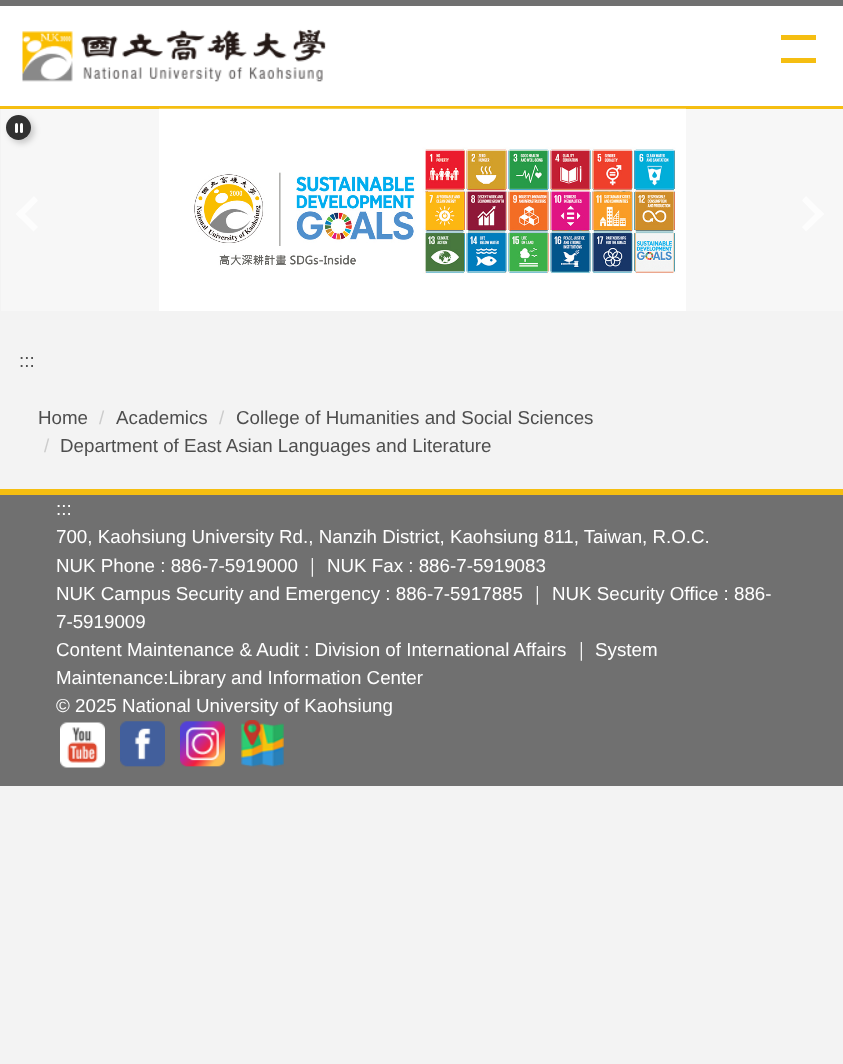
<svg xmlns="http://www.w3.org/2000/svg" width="843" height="1064">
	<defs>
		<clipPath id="clip1"><path d="M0 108H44V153H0ZM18.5 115C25.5 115 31 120.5 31 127.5C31 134.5 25.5 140 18.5 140C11.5 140 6 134.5 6 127.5C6 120.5 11.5 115 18.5 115Z" clip-rule="evenodd" /></clipPath>
	</defs>
	<rect width="100%" height="100%" fill="#F3F3F3" />
	<rect x="0" y="0" width="843" height="6" fill="#707070" />
	<rect x="0" y="6" width="843" height="100" fill="#FFFFFF" />
	<rect x="0" y="106" width="843" height="3" fill="#F5BE11" />
	<image x="22" y="29" width="304" height="53" href="assets/img1.png" />
	<rect x="781" y="35" width="35" height="5" fill="#F5BE11" />
	<rect x="781" y="58" width="35" height="5" fill="#F5BE11" />
	<rect x="1" y="109" width="842" height="202" fill="#F7F7F7" />
	<g clip-path="url(#clip1)">
		<rect x="9" y="118" width="25" height="25" rx="12.5" fill="#000000" fill-opacity="0.2" filter="blur(3px)" />
	</g>
	<circle cx="18.5" cy="127.5" r="12.5" fill="#000000" fill-opacity="0.8" />
	<rect x="15" y="123" width="3" height="10" rx="1.5" fill="#FFFFFF" />
	<rect x="20" y="123" width="3" height="10" rx="1.5" fill="#FFFFFF" />
	<image x="159" y="108" width="527" height="203" href="assets/img2.png" />
	<path d="M33.5 231.5L16 214L20.5 209.5L38 227Z" fill="#FDFDFD" />
	<path d="M20.5 218.5L16 214L34 196L38 200.5Z" fill="#FDFDFD" />
	<path d="M806 196L824 214L819.5 218.5L802 200.5Z" fill="#FDFDFD" />
	<path d="M819.5 209.5L824 214L806 231.5L802 227Z" fill="#FDFDFD" />
	<g font-family="Liberation Sans" font-size="18.75" fill="#4E4E4E">
		<text x="19" y="367">:::</text>
		<text x="38" y="424">Home</text>
	</g>
	<text x="99" y="424" font-family="Liberation Sans" font-size="18.75" fill="#CCCCCC">/</text>
	<text x="116" y="424" font-family="Liberation Sans" font-size="18.75" fill="#4E4E4E">Academics</text>
	<text x="219" y="424" font-family="Liberation Sans" font-size="18.75" fill="#CCCCCC">/</text>
	<text x="236" y="424" font-family="Liberation Sans" font-size="18.75" fill="#4E4E4E">College of Humanities and Social Sciences</text>
	<text x="44" y="452" font-family="Liberation Sans" font-size="18.75" fill="#CCCCCC">/</text>
	<text x="60" y="452" font-family="Liberation Sans" font-size="18.75" fill="#4E4E4E">Department of East Asian Languages and Literature</text>
	<rect x="0" y="495" width="843" height="291" fill="#707070" />
	<rect x="0" y="489" width="843" height="6" fill="#F5BE11" />
	<g font-family="Liberation Sans" font-size="18.75" fill="#FFFFFF">
		<text x="56" y="515">:::</text>
		<text x="56" y="543">700, Kaohsiung University Rd., Nanzih District, Kaohsiung 811, Taiwan, R.O.C.</text>
		<text x="56" y="572">NUK Phone : 886-7-5919000</text>
	</g>
	<text x="303" y="572" font-family="WenQuanYi Zen Hei" font-size="18.75" font-weight="500" fill="#FFFFFF">｜</text>
	<g font-family="Liberation Sans" font-size="18.75" fill="#FFFFFF">
		<text x="327" y="572">NUK Fax : 886-7-5919083</text>
		<text x="56" y="600">NUK Campus Security and Emergency : 886-7-5917885</text>
	</g>
	<text x="528" y="600" font-family="WenQuanYi Zen Hei" font-size="18.75" font-weight="500" fill="#FFFFFF">｜</text>
	<g font-family="Liberation Sans" font-size="18.75" fill="#FFFFFF">
		<text x="552" y="600">NUK Security Office : 886-</text>
		<text x="56" y="628">7-5919009</text>
		<text x="56" y="656">Content Maintenance &amp; Audit : Division of International Affairs</text>
	</g>
	<text x="572" y="656" font-family="WenQuanYi Zen Hei" font-size="18.75" font-weight="500" fill="#FFFFFF">｜</text>
	<g font-family="Liberation Sans" font-size="18.75" fill="#FFFFFF">
		<text x="595" y="656">System</text>
		<text x="56" y="684">Maintenance:Library and Information Center</text>
		<text x="56" y="712">© 2025 National University of Kaohsiung</text>
	</g>
	<image x="60" y="722" width="45" height="46" href="assets/img3.png" />
	<image x="120" y="721" width="45" height="46" href="assets/img4.png" />
	<image x="180" y="721" width="45" height="46" href="assets/img5.png" />
	<image x="241" y="720" width="43" height="47" href="assets/img6.png" />
</svg>
